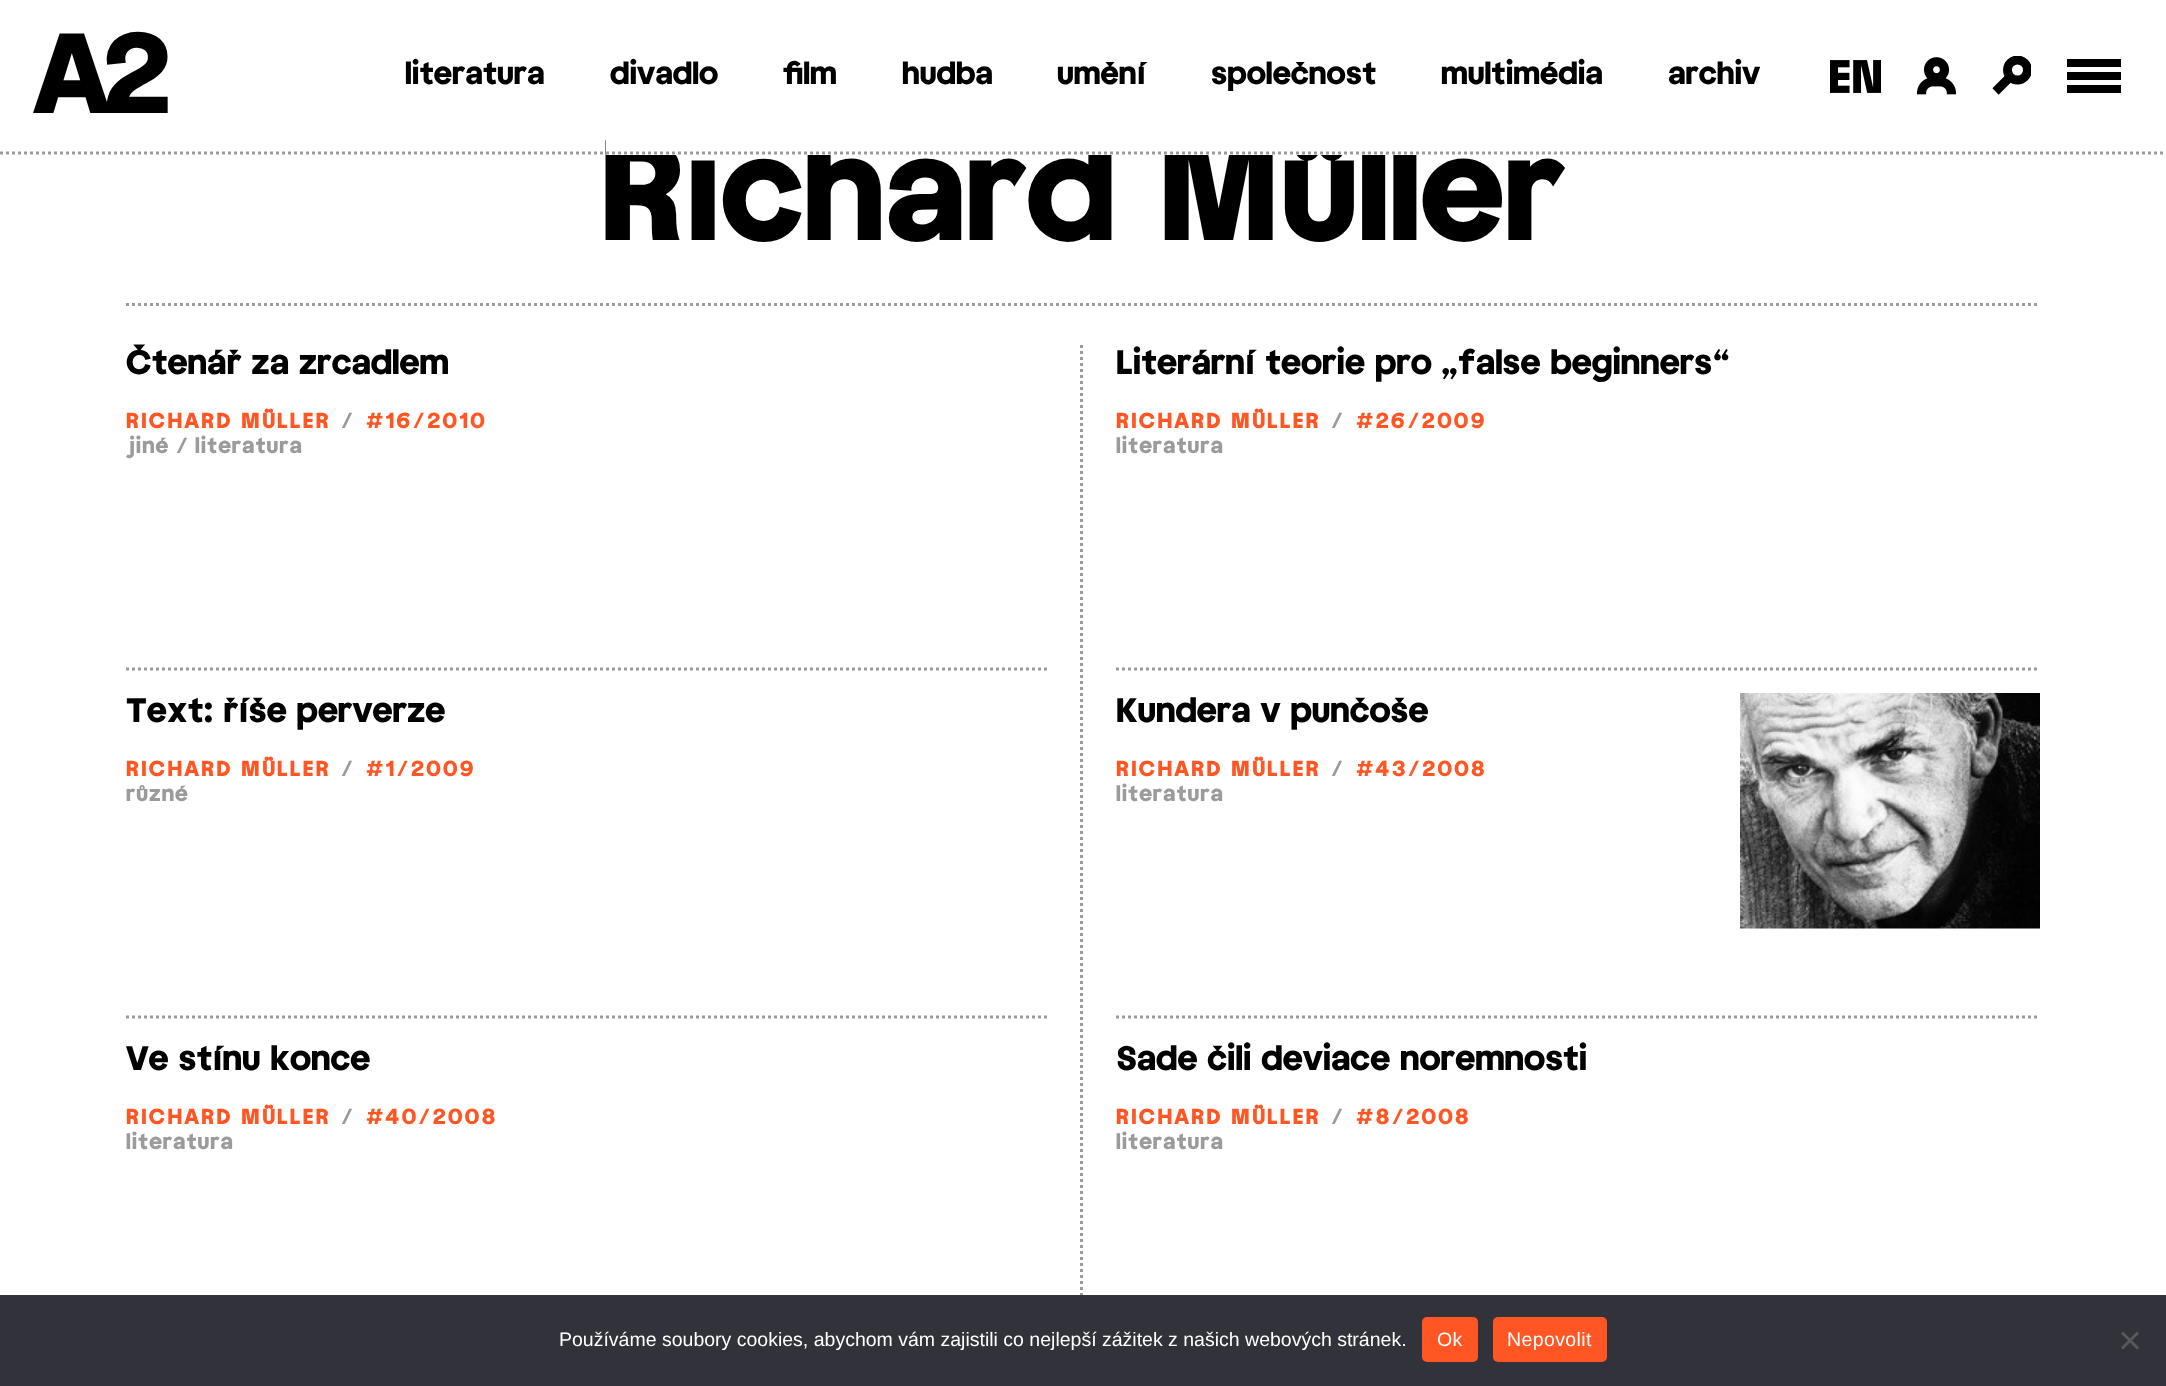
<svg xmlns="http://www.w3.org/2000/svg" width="2166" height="1386">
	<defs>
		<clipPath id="clip1"><rect x="1992" y="56" width="39" height="39" /></clipPath>
	</defs>
	<rect width="100%" height="100%" fill="#FFFFFF" />
	<text x="600" y="240" font-family="'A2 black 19'" font-size="138" font-weight="900" fill="#000000">Richard Müller</text>
	<rect x="606" y="124" width="811" height="31" fill="#FFFFFF" />
	<path d="M0 153H2166" fill="none" stroke="#9B9B9B" stroke-width="3" stroke-dasharray="3 3" />
	<text x="33" y="113" font-family="'A2 black 19'" font-size="110" font-weight="900" letter-spacing="-9" fill="#000000">A2</text>
	<g font-family="'A2 black 19'" font-size="30" font-weight="900" fill="#000000">
		<text x="405" y="84">literatura</text>
		<text x="610" y="84">divadlo</text>
		<text x="783" y="84">film</text>
		<text x="902" y="84">hudba</text>
		<text x="1057" y="84">umění</text>
		<text x="1211" y="84">společnost</text>
		<text x="1441" y="84">multimédia</text>
		<text x="1668" y="84">archiv</text>
	</g>
	<image x="1830" y="60" width="51" height="33" href="assets/img1.png" />
	<image x="1917" y="57" width="39" height="38" href="assets/img2.png" />
	<g clip-path="url(#clip1)">
		<circle cx="2017.5" cy="70" r="10" fill="none" stroke="#000000" stroke-width="8.9" />
	</g>
	<path d="M2010 77L1995.5 91.5" fill="none" stroke="#000000" stroke-width="8.9" />
	<rect x="2067" y="59" width="54" height="8" fill="#000000" />
	<rect x="2067" y="72" width="54" height="8" fill="#000000" />
	<rect x="2067" y="85" width="54" height="8" fill="#000000" />
	<path d="M126 304.5H2040" fill="none" stroke="#9B9B9B" stroke-width="3" stroke-dasharray="3 3" />
	<path d="M1081.5 345V645" fill="none" stroke="#9B9B9B" stroke-width="3" stroke-dasharray="3 3" />
	<text x="126" y="374" font-family="'A2 black 19'" font-size="33" font-weight="900" fill="#000000">Čtenář za zrcadlem</text>
	<text x="126" y="428" font-family="'A2 black 19'" font-size="21" font-weight="900" letter-spacing="2.2" fill="#FF5624">RICHARD MÜLLER</text>
	<text x="341" y="428" font-family="'A2 black 19'" font-size="21" font-weight="900" letter-spacing="3" fill="#9B9B9B">/</text>
	<text x="366" y="428" font-family="'A2 black 19'" font-size="21" font-weight="900" letter-spacing="2.2" fill="#FF5624">#16/2010</text>
	<g font-family="'A2 black 19'" font-size="21" font-weight="900" letter-spacing="1" fill="#9B9B9B">
		<text x="126" y="453">jiné</text>
		<text x="176" y="453">/</text>
		<text x="195" y="453">literatura</text>
	</g>
	<text x="1116" y="374" font-family="'A2 black 19'" font-size="33" font-weight="900" fill="#000000">Literární teorie pro „false beginners“</text>
	<text x="1116" y="428" font-family="'A2 black 19'" font-size="21" font-weight="900" letter-spacing="2.2" fill="#FF5624">RICHARD MÜLLER</text>
	<text x="1331" y="428" font-family="'A2 black 19'" font-size="21" font-weight="900" letter-spacing="3" fill="#9B9B9B">/</text>
	<text x="1356" y="428" font-family="'A2 black 19'" font-size="21" font-weight="900" letter-spacing="2.2" fill="#FF5624">#26/2009</text>
	<text x="1116" y="453" font-family="'A2 black 19'" font-size="21" font-weight="900" letter-spacing="1" fill="#9B9B9B">literatura</text>
	<path d="M1081.5 645V993" fill="none" stroke="#9B9B9B" stroke-width="3" stroke-dasharray="3 3" />
	<path d="M126 669H1047" fill="none" stroke="#9B9B9B" stroke-width="3" stroke-dasharray="3 3" />
	<text x="126" y="722" font-family="'A2 black 19'" font-size="33" font-weight="900" fill="#000000">Text: říše perverze</text>
	<text x="126" y="776" font-family="'A2 black 19'" font-size="21" font-weight="900" letter-spacing="2.2" fill="#FF5624">RICHARD MÜLLER</text>
	<text x="341" y="776" font-family="'A2 black 19'" font-size="21" font-weight="900" letter-spacing="3" fill="#9B9B9B">/</text>
	<text x="366" y="776" font-family="'A2 black 19'" font-size="21" font-weight="900" letter-spacing="2.2" fill="#FF5624">#1/2009</text>
	<text x="126" y="801" font-family="'A2 black 19'" font-size="21" font-weight="900" letter-spacing="1" fill="#9B9B9B">různé</text>
	<path d="M1116 669H2040" fill="none" stroke="#9B9B9B" stroke-width="3" stroke-dasharray="3 3" />
	<text x="1116" y="722" font-family="'A2 black 19'" font-size="33" font-weight="900" fill="#000000">Kundera v punčoše</text>
	<text x="1116" y="776" font-family="'A2 black 19'" font-size="21" font-weight="900" letter-spacing="2.2" fill="#FF5624">RICHARD MÜLLER</text>
	<text x="1331" y="776" font-family="'A2 black 19'" font-size="21" font-weight="900" letter-spacing="3" fill="#9B9B9B">/</text>
	<text x="1356" y="776" font-family="'A2 black 19'" font-size="21" font-weight="900" letter-spacing="2.2" fill="#FF5624">#43/2008</text>
	<text x="1116" y="801" font-family="'A2 black 19'" font-size="21" font-weight="900" letter-spacing="1" fill="#9B9B9B">literatura</text>
	<image x="1740" y="693" width="300" height="236" href="assets/img3.png" />
	<path d="M1081.5 993V1341" fill="none" stroke="#9B9B9B" stroke-width="3" stroke-dasharray="3 3" />
	<path d="M126 1017H1047" fill="none" stroke="#9B9B9B" stroke-width="3" stroke-dasharray="3 3" />
	<text x="126" y="1070" font-family="'A2 black 19'" font-size="33" font-weight="900" fill="#000000">Ve stínu konce</text>
	<text x="126" y="1124" font-family="'A2 black 19'" font-size="21" font-weight="900" letter-spacing="2.2" fill="#FF5624">RICHARD MÜLLER</text>
	<text x="341" y="1124" font-family="'A2 black 19'" font-size="21" font-weight="900" letter-spacing="3" fill="#9B9B9B">/</text>
	<text x="366" y="1124" font-family="'A2 black 19'" font-size="21" font-weight="900" letter-spacing="2.2" fill="#FF5624">#40/2008</text>
	<text x="126" y="1149" font-family="'A2 black 19'" font-size="21" font-weight="900" letter-spacing="1" fill="#9B9B9B">literatura</text>
	<path d="M1116 1017H2040" fill="none" stroke="#9B9B9B" stroke-width="3" stroke-dasharray="3 3" />
	<text x="1116" y="1070" font-family="'A2 black 19'" font-size="33" font-weight="900" fill="#000000">Sade čili deviace noremnosti</text>
	<text x="1116" y="1124" font-family="'A2 black 19'" font-size="21" font-weight="900" letter-spacing="2.2" fill="#FF5624">RICHARD MÜLLER</text>
	<text x="1331" y="1124" font-family="'A2 black 19'" font-size="21" font-weight="900" letter-spacing="3" fill="#9B9B9B">/</text>
	<text x="1356" y="1124" font-family="'A2 black 19'" font-size="21" font-weight="900" letter-spacing="2.2" fill="#FF5624">#8/2008</text>
	<text x="1116" y="1149" font-family="'A2 black 19'" font-size="21" font-weight="900" letter-spacing="1" fill="#9B9B9B">literatura</text>
	<rect x="0" y="1295" width="2166" height="91" fill="#32323A" />
	<text x="559" y="1346" font-family="Liberation Sans" font-size="19.5" fill="#FFFFFF">Používáme soubory cookies, abychom vám zajistili co nejlepší zážitek z našich webových stránek.</text>
	<rect x="1422" y="1317" width="56" height="45" rx="5" fill="#FF5624" />
	<text x="1437" y="1346" font-family="Liberation Sans" font-size="19.5" letter-spacing="0.4" fill="#FFFFFF">Ok</text>
	<rect x="1493" y="1317" width="114" height="45" rx="5" fill="#FF5624" />
	<text x="1507" y="1346" font-family="Liberation Sans" font-size="19.5" letter-spacing="0.4" fill="#FFFFFF">Nepovolit</text>
	<path d="M2137 1331.5L2139 1333.5L2123 1349.5L2121 1347.5Z" fill="#59595D" />
	<path d="M2121 1333.5L2123 1331.5L2139 1347.5L2137 1349.5Z" fill="#59595D" />
</svg>
